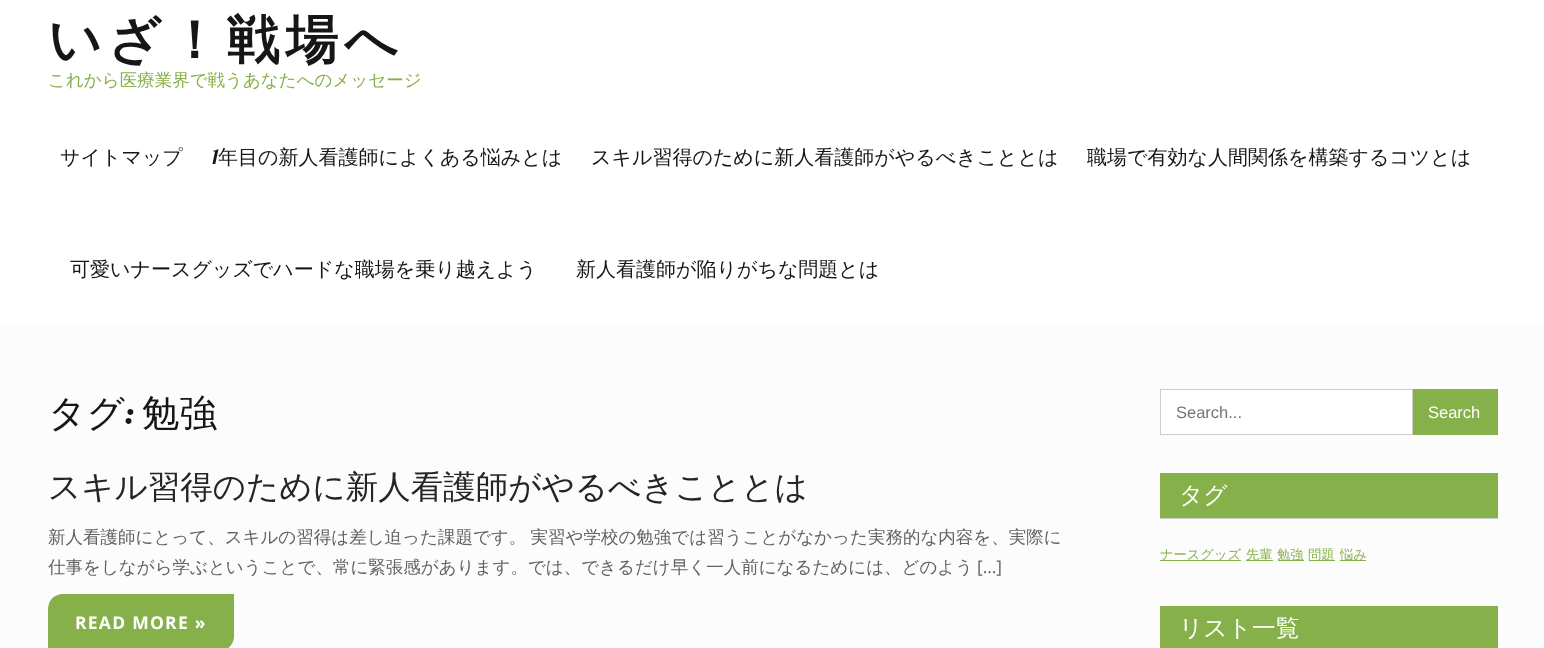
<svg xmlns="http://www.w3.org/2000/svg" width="1544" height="648">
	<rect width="100%" height="100%" fill="#FCFCFC" />
	<rect x="0" y="0" width="1544" height="326" fill="#FFFFFF" />
	<text x="48" y="58" font-family="WenQuanYi Zen Hei" font-size="52.5" font-weight="700" letter-spacing="6.25" fill="#151618">いざ！戦場へ</text>
	<text x="48" y="86" font-family="WenQuanYi Zen Hei" font-size="17.5" font-weight="500" fill="#86B049">これから医療業界で戦うあなたへのメッセージ</text>
	<text x="60" y="164" font-family="WenQuanYi Zen Hei" font-size="20" font-weight="500" fill="#151618">サイトマップ</text>
	<text x="212" y="164" font-family="Lobster" font-size="20" fill="#151618">1</text>
	<g font-family="WenQuanYi Zen Hei" font-size="20" font-weight="500" fill="#151618">
		<text x="218" y="164">年目の新人看護師によくある悩みとは</text>
		<text x="591" y="164">スキル習得のために新人看護師がやるべきこととは</text>
		<text x="1087" y="164">職場で有効な人間関係を構築するコツとは</text>
		<text x="70" y="276">可愛いナースグッズでハードな職場を乗り越えよう</text>
		<text x="576" y="276">新人看護師が陥りがちな問題とは</text>
	</g>
	<text x="48" y="426" font-family="WenQuanYi Zen Hei" font-size="37.5" font-weight="500" fill="#151618">タグ</text>
	<text x="124" y="426" font-family="Lobster" font-size="37.5" fill="#151618">:</text>
	<text x="142" y="426" font-family="WenQuanYi Zen Hei" font-size="37.5" font-weight="500" fill="#151618">勉強</text>
	<text x="48" y="498" font-family="WenQuanYi Zen Hei" font-size="32.5" font-weight="500" fill="#252525">スキル習得のために新人看護師がやるべきこととは</text>
	<g font-family="WenQuanYi Zen Hei" font-size="17.5" font-weight="500" fill="#626262">
		<text x="48" y="543" word-spacing="-1">新人看護師にとって、スキルの習得は差し迫った課題です。 実習や学校の勉強では習うことがなかった実務的な内容を、実際に</text>
		<text x="48" y="573">仕事をしながら学ぶということで、常に緊張感があります。では、できるだけ早く一人前になるためには、どのよう</text>
	</g>
	<text x="977" y="573" font-family="Open Sans" font-size="17.5" fill="#626262">[…]</text>
	<path d="M63 594H234V636C234 644.5 227.5 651 219 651H48V609C48 600.5 54.5 594 63 594Z" fill="#86B049" />
	<text x="75" y="629" font-family="Open Sans" font-size="17.5" font-weight="700" letter-spacing="1.25" fill="#FFFFFF">READ MORE »</text>
	<rect x="1160.5" y="389.5" width="252" height="45" fill="#FFFFFF" stroke="#CCCCCC" />
	<text x="1176" y="418" font-family="Liberation Sans" font-size="16.5" fill="#757575">Search...</text>
	<rect x="1413" y="389" width="85" height="46" fill="#86B049" />
	<text x="1428" y="418" font-family="Liberation Sans" font-size="16.5" fill="#FFFFFF">Search</text>
	<rect x="1160" y="473" width="338" height="45" fill="#86B049" />
	<rect x="1160" y="518" width="338" height="1" fill="#CCCCCC" />
	<text x="1179" y="503" font-family="WenQuanYi Zen Hei" font-size="23.75" font-weight="500" fill="#FFFFFF">タグ</text>
	<rect x="1160" y="560" width="81" height="1" fill="#86B049" />
	<text x="1160" y="559" font-family="WenQuanYi Zen Hei" font-size="13.25" font-weight="500" fill="#86B049">ナースグッズ</text>
	<rect x="1246" y="560" width="27" height="1" fill="#86B049" />
	<text x="1246" y="559" font-family="WenQuanYi Zen Hei" font-size="13.25" font-weight="500" fill="#86B049">先輩</text>
	<rect x="1278" y="560" width="26" height="1" fill="#86B049" />
	<text x="1277" y="559" font-family="WenQuanYi Zen Hei" font-size="13.25" font-weight="500" fill="#86B049">勉強</text>
	<rect x="1309" y="560" width="26" height="1" fill="#86B049" />
	<text x="1308" y="559" font-family="WenQuanYi Zen Hei" font-size="13.25" font-weight="500" fill="#86B049">問題</text>
	<rect x="1340" y="560" width="26" height="1" fill="#86B049" />
	<text x="1340" y="559" font-family="WenQuanYi Zen Hei" font-size="13.25" font-weight="500" fill="#86B049">悩み</text>
	<rect x="1160" y="606" width="338" height="42" fill="#86B049" />
	<text x="1179" y="636" font-family="WenQuanYi Zen Hei" font-size="23.75" font-weight="500" fill="#FFFFFF">リスト一覧</text>
</svg>
